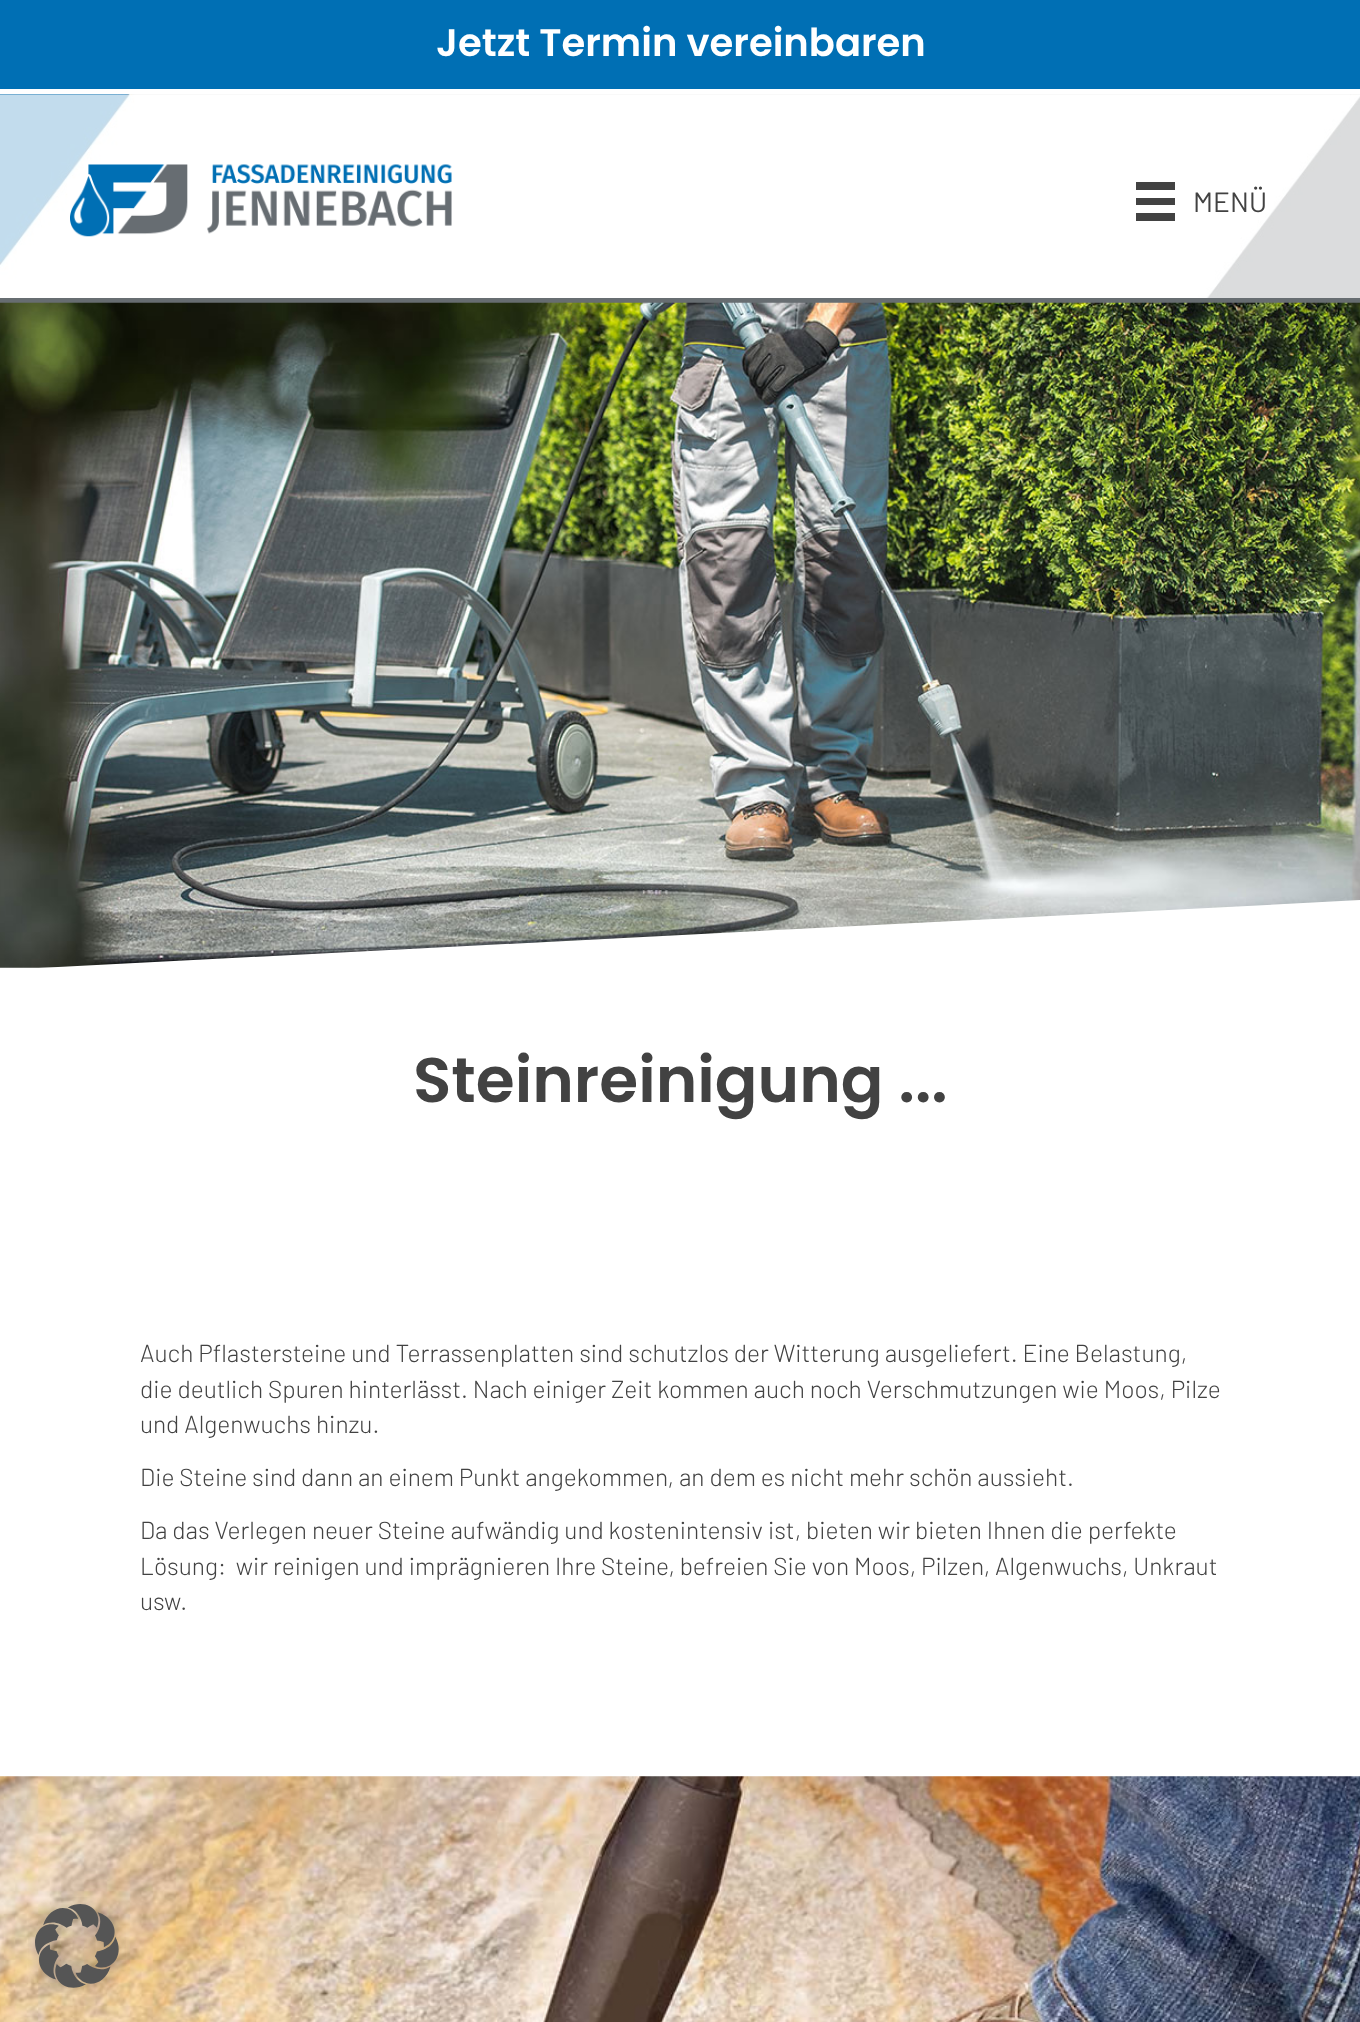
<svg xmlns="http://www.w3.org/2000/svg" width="1360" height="2022">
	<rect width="100%" height="100%" fill="#F2F2F2" />
	<rect x="0" y="0" width="1360" height="89" fill="#006FB4" />
	<rect x="0" y="89" width="1360" height="5" fill="#FFFFFF" />
	<text x="436" y="56" font-family="Poppins" font-size="38.5" font-weight="600" fill="#FFFFFF">Jetzt Termin vereinbaren</text>
	<image x="0" y="94" width="1360" height="204" href="assets/img1.png" />
	<rect x="0" y="298" width="1360" height="5" fill="#676D71" />
	<image x="70" y="164" width="382" height="73" href="assets/img2.png" />
	<rect x="1136" y="182" width="39" height="8" fill="#424242" />
	<rect x="1136" y="198" width="39" height="7" fill="#424242" />
	<rect x="1136" y="213" width="39" height="8" fill="#424242" />
	<text x="1193" y="212" font-family="Barlow" font-size="28" fill="#424242">MENÜ</text>
	<rect x="0" y="967" width="1360" height="810" fill="#FFFFFF" />
	<image x="0" y="302" width="1360" height="666" href="assets/img3.png" />
	<path d="M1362 900V970H0Z" fill="#FFFFFF" />
	<text x="413" y="1102" font-family="Poppins" font-size="63" font-weight="600" fill="#424242">Steinreinigung ...</text>
	<g font-family="Barlow" font-size="24.5" font-weight="300" fill="#424242">
		<text x="140" y="1362">Auch Pflastersteine und Terrassenplatten sind schutzlos der Witterung ausgeliefert. Eine Belastung,</text>
		<text x="140" y="1398">die deutlich Spuren hinterlässt. Nach einiger Zeit kommen auch noch Verschmutzungen wie Moos, Pilze</text>
		<text x="140" y="1433">und Algenwuchs hinzu.</text>
		<text x="140" y="1486">Die Steine sind dann an einem Punkt angekommen, an dem es nicht mehr schön aussieht.</text>
		<text x="140" y="1539">Da das Verlegen neuer Steine aufwändig und kostenintensiv ist, bieten wir bieten Ihnen die perfekte</text>
		<text x="140" y="1575" xml:space="preserve">Lösung:  wir reinigen und imprägnieren Ihre Steine, befreien Sie von Moos, Pilzen, Algenwuchs, Unkraut</text>
		<text x="140" y="1610">usw.</text>
	</g>
	<image x="0" y="1776" width="1360" height="246" href="assets/img4.png" />
	<image x="28" y="1897" width="98" height="98" href="assets/img5.png" />
</svg>
